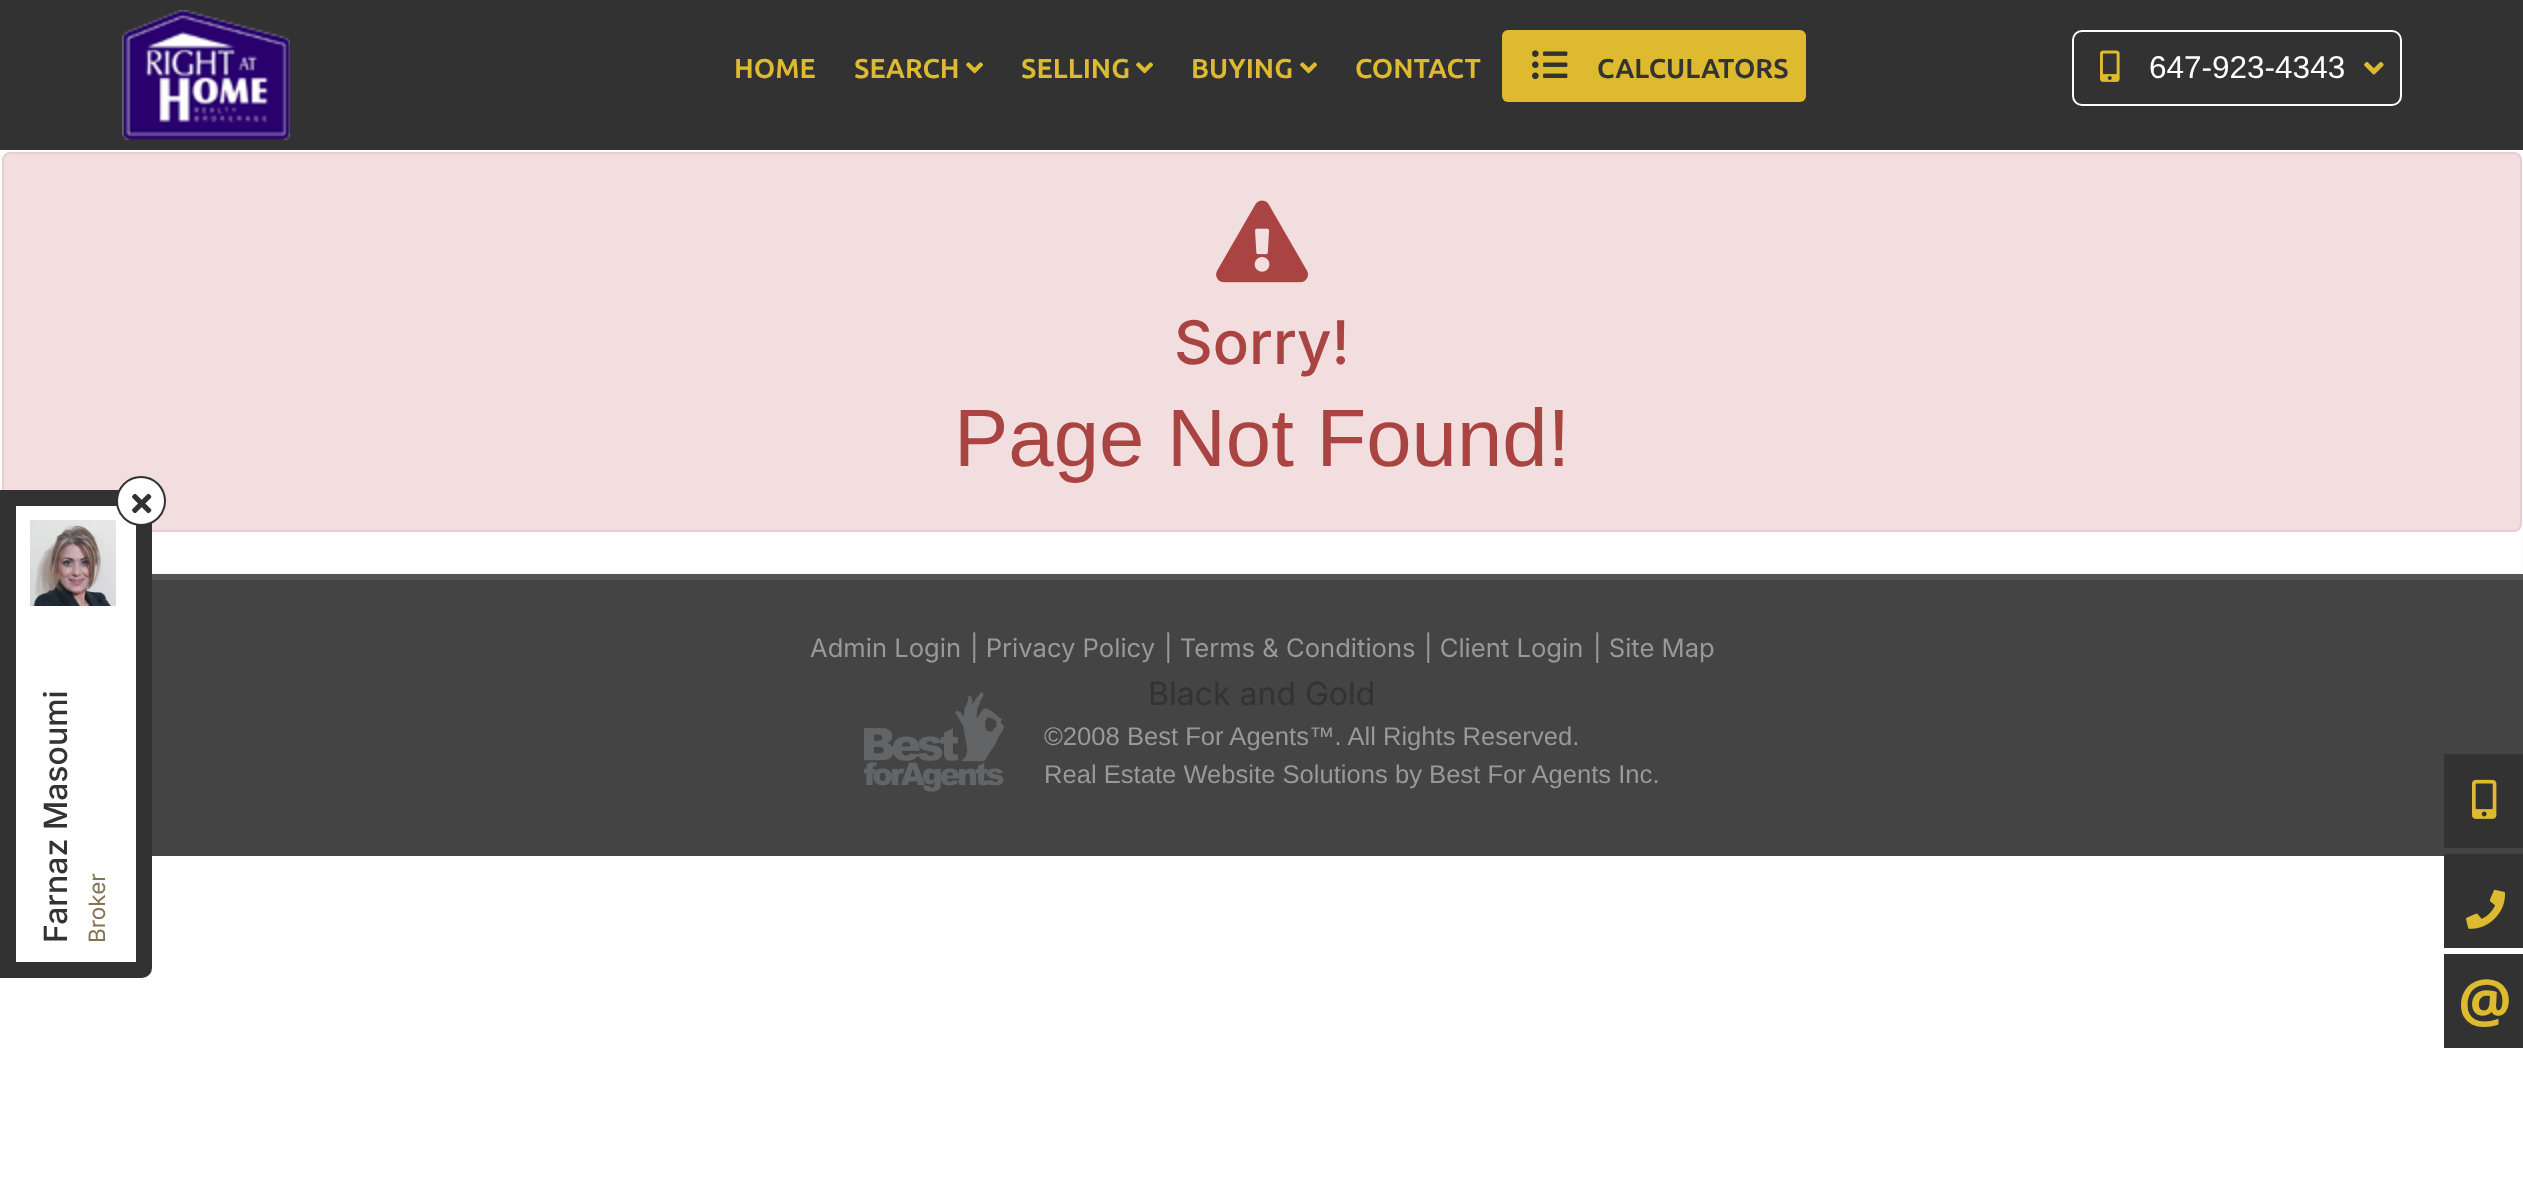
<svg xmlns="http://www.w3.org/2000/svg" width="2523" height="1178">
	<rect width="100%" height="100%" fill="#FFFFFF" />
	<rect x="0" y="0" width="2523" height="150" fill="#323232" />
	<image x="122" y="10" width="168" height="130" href="assets/img1.png" />
	<g font-family="Ubuntu" font-size="27.25" font-weight="700" fill="#DDBA2F">
		<text x="734" y="78">HOME</text>
		<text x="854" y="78">SEARCH</text>
	</g>
	<image x="966" y="62" width="17" height="12" href="assets/img2.png" />
	<text x="1021" y="78" font-family="Ubuntu" font-size="27.25" font-weight="700" fill="#DDBA2F">SELLING</text>
	<image x="1136" y="62" width="17" height="12" href="assets/img2.png" />
	<text x="1191" y="78" font-family="Ubuntu" font-size="27.25" font-weight="700" fill="#DDBA2F">BUYING</text>
	<image x="1300" y="62" width="17" height="12" href="assets/img2.png" />
	<text x="1355" y="78" font-family="Ubuntu" font-size="27.25" font-weight="700" fill="#DDBA2F">CONTACT</text>
	<rect x="1502" y="30" width="304" height="72" rx="6" fill="#DDBA2F" />
	<image x="1532" y="50" width="36" height="30" href="assets/img3.png" />
	<text x="1597" y="78" font-family="Ubuntu" font-size="27.25" font-weight="700" fill="#333333">CALCULATORS</text>
	<rect x="2073" y="31" width="328" height="74" rx="9" fill="none" stroke="#FFFFFF" stroke-width="2" />
	<image x="2100" y="50" width="20" height="32" href="assets/img4.png" />
	<text x="2149" y="78" font-family="Liberation Sans" font-size="31.5" fill="#FFFFFF">647-923-4343</text>
	<image x="2364" y="61" width="20" height="14" href="assets/img5.png" />
	<rect x="1" y="151" width="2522" height="422" rx="5" fill="none" stroke="#FBFBFB" stroke-width="2" />
	<rect x="3" y="153" width="2518" height="378" rx="7" fill="#F2DEDE" stroke="#EBCCD1" stroke-width="2" />
	<image x="1216" y="200" width="92" height="83" href="assets/img6.png" />
	<text x="1174" y="364" font-family="Inter" font-size="60" font-weight="500" fill="#A94442">Sorry!</text>
	<text x="954" y="466" font-family="Liberation Sans" font-size="81.5" fill="#A94442">Page Not Found!</text>
	<rect x="152" y="574" width="2371" height="6" fill="#555555" />
	<rect x="152" y="580" width="2371" height="276" fill="#444444" />
	<g font-family="Inter" font-size="25.6" fill="#999999">
		<text x="810" y="657">Admin Login</text>
		<text x="970" y="657">| Privacy Policy</text>
		<text x="1164" y="657">| Terms &amp; Conditions</text>
		<text x="1424" y="657">| Client Login</text>
		<text x="1593" y="657">| Site Map</text>
	</g>
	<text x="1148" y="705" font-family="Inter" font-size="32" fill="#333333">Black and Gold</text>
	<image x="864" y="692" width="140" height="100" href="assets/img7.png" />
	<g font-family="Liberation Sans" font-size="25.6" fill="#999999">
		<text x="1044" y="745">©2008 Best For Agents™. All Rights Reserved.</text>
		<text x="1044" y="783">Real Estate Website Solutions by Best For Agents Inc.</text>
	</g>
	<path d="M8 498H142C143 498 144 499 144 500V968C144 969 143 970 142 970H8Z" fill="#FFFFFF" stroke="#323232" stroke-width="16" />
	<circle cx="141" cy="501" r="24" fill="#FFFFFF" stroke="#323232" stroke-width="2" />
	<image x="132" y="493" width="20" height="21" href="assets/img8.png" />
	<image x="30" y="520" width="86" height="86" href="assets/img9.png" />
	<text x="67" y="943" transform="rotate(-90 67 943)" font-family="Inter" font-size="32" font-weight="500" fill="#333333">Farnaz Masoumi</text>
	<text x="105" y="943" transform="rotate(-90 105 943)" font-family="Inter" font-size="22.5" fill="#857352">Broker</text>
	<rect x="2444" y="754" width="79" height="94" fill="#323232" />
	<image x="2472" y="779" width="25" height="40" href="assets/img10.png" />
	<rect x="2444" y="854" width="79" height="94" fill="#323232" />
	<image x="2466" y="889" width="40" height="40" href="assets/img11.png" />
	<rect x="2444" y="954" width="79" height="94" fill="#323232" />
	<text x="2458" y="1022" font-family="Open Sans" font-size="60" font-weight="700" fill="#DDBA2F">@</text>
</svg>
